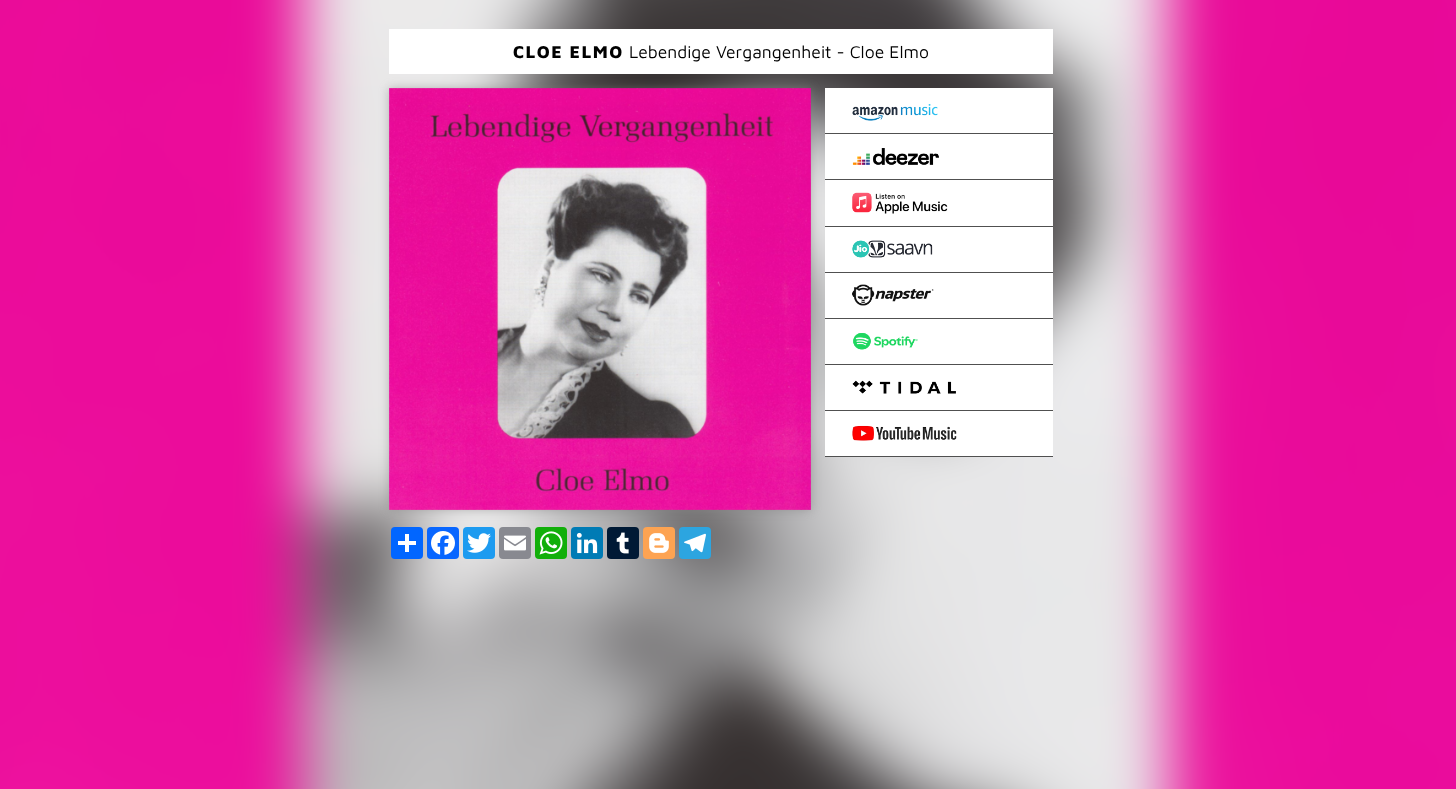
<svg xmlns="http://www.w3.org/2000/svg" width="1456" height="789">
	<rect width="100%" height="100%" fill="#FFFFFF" />
	<image x="0" y="0" width="1456" height="789" href="assets/img1.png" />
	<rect x="389" y="29" width="664" height="45" fill="#FFFFFF" />
	<text x="513" y="58" font-family="Maven Pro" font-size="17.5" font-weight="800" letter-spacing="1.5" fill="#000000">CLOE ELMO</text>
	<text x="629" y="58" font-family="Maven Pro" font-size="17.5" fill="#000000">Lebendige Vergangenheit - Cloe Elmo</text>
	<rect x="389" y="88" width="422" height="422" fill="#7D7D7D" fill-opacity="0.5" filter="blur(5px)" />
	<image x="389" y="88" width="422" height="422" href="assets/img2.png" />
	<rect x="391" y="527" width="32" height="32" rx="4" fill="#0166FF" />
	<rect x="405" y="534" width="4" height="18" fill="#FFFFFF" />
	<rect x="398" y="541" width="18" height="4" fill="#FFFFFF" />
	<rect x="427" y="527" width="32" height="32" rx="4" fill="#0866FF" />
	<image x="431" y="531" width="24" height="24" href="assets/img3.png" />
	<rect x="463" y="527" width="32" height="32" rx="4" fill="#1D9BF0" />
	<image x="467" y="533" width="24" height="20" href="assets/img4.png" />
	<rect x="499" y="527" width="32" height="32" rx="4" fill="#888990" />
	<image x="504" y="535" width="22" height="16" href="assets/img5.png" />
	<rect x="535" y="527" width="32" height="32" rx="4" fill="#12AF0A" />
	<image x="539" y="531" width="24" height="24" href="assets/img6.png" />
	<rect x="571" y="527" width="32" height="32" rx="4" fill="#007BB5" />
	<image x="576" y="532" width="22" height="22" href="assets/img7.png" />
	<rect x="607" y="527" width="32" height="32" rx="4" fill="#001935" />
	<image x="616" y="532" width="13" height="22" href="assets/img8.png" />
	<rect x="643" y="527" width="32" height="32" rx="4" fill="#FDA352" />
	<image x="649" y="533" width="20" height="20" href="assets/img9.png" />
	<rect x="679" y="527" width="32" height="32" rx="4" fill="#2CA5E0" />
	<image x="684" y="533" width="22" height="20" href="assets/img10.png" />
	<rect x="825" y="88" width="228" height="45" fill="#FFFFFF" />
	<rect x="825" y="133" width="228" height="1" fill="#505050" />
	<image x="852" y="104" width="86" height="17" href="assets/img11.png" />
	<rect x="825" y="134" width="228" height="45" fill="#FFFFFF" />
	<rect x="825" y="179" width="228" height="1" fill="#505050" />
	<image x="852" y="148" width="87" height="17" href="assets/img12.png" />
	<rect x="825" y="180" width="228" height="46" fill="#FFFFFF" />
	<rect x="825" y="226" width="228" height="1" fill="#505050" />
	<image x="852" y="192" width="96" height="22" href="assets/img13.png" />
	<rect x="825" y="227" width="228" height="45" fill="#FFFFFF" />
	<rect x="825" y="272" width="228" height="1" fill="#505050" />
	<image x="852" y="240" width="81" height="18" href="assets/img14.png" />
	<rect x="825" y="273" width="228" height="45" fill="#FFFFFF" />
	<rect x="825" y="318" width="228" height="1" fill="#505050" />
	<image x="852" y="284" width="82" height="22" href="assets/img15.png" />
	<rect x="825" y="319" width="228" height="45" fill="#FFFFFF" />
	<rect x="825" y="364" width="228" height="1" fill="#505050" />
	<image x="853" y="333" width="65" height="17" href="assets/img16.png" />
	<rect x="825" y="365" width="228" height="45" fill="#FFFFFF" />
	<rect x="825" y="410" width="228" height="1" fill="#505050" />
	<image x="852" y="380" width="104" height="14" href="assets/img17.png" />
	<rect x="825" y="411" width="228" height="45" fill="#FFFFFF" />
	<rect x="825" y="456" width="228" height="1" fill="#505050" />
	<image x="852" y="425" width="105" height="16" href="assets/img18.png" />
</svg>
